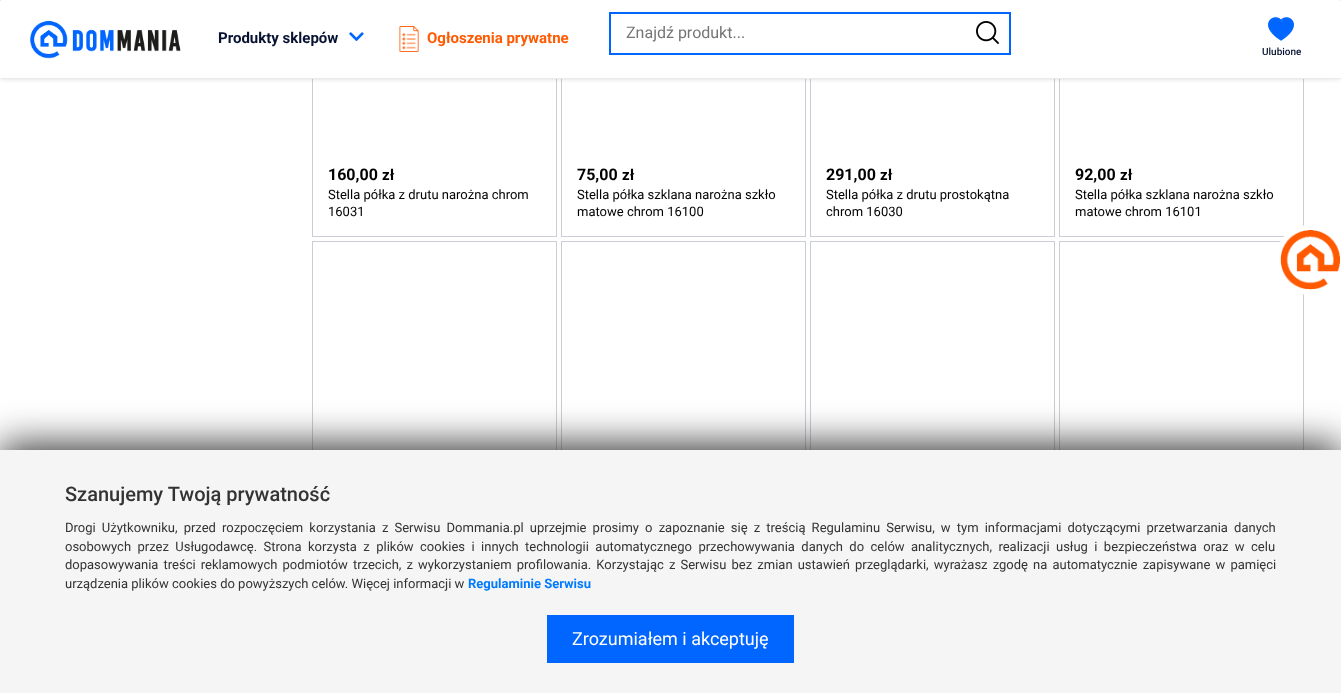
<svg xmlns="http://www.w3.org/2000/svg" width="1341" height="693">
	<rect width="100%" height="100%" fill="#FFFFFF" />
	<rect x="312.5" y="-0.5" width="244" height="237" fill="none" stroke="#CBCDD4" />
	<rect x="561.5" y="-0.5" width="244" height="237" fill="none" stroke="#CBCDD4" />
	<rect x="810.5" y="-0.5" width="244" height="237" fill="none" stroke="#CBCDD4" />
	<rect x="1059.5" y="-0.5" width="244" height="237" fill="none" stroke="#CBCDD4" />
	<rect x="0" y="-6" width="1341" height="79" rx="1" fill="#333333" filter="blur(5px)" />
	<rect x="0" y="0" width="1341" height="79" rx="1" fill="#FFFFFF" />
	<rect x="1" y="78" width="1340" height="1" fill="#EBEBEB" />
	<image x="30" y="20" width="151" height="39" href="assets/img1.png" />
	<text x="218" y="43" font-family="Roboto" font-size="15" font-weight="700" fill="#071232">Produkty sklepów</text>
	<image x="349" y="32" width="15" height="9" href="assets/img2.png" />
	<image x="399" y="26" width="20" height="26" href="assets/img3.png" />
	<text x="427" y="43" font-family="Roboto" font-size="15" font-weight="700" fill="#FF5A01">Ogłoszenia prywatne</text>
	<rect x="610" y="13" width="400" height="41" fill="none" stroke="#0066FF" stroke-width="2" />
	<text x="626" y="38" font-family="Roboto" font-size="16" fill="#757575">Znajdź produkt...</text>
	<image x="976" y="21" width="23" height="23" href="assets/img4.png" />
	<image x="1268" y="17" width="26" height="24" href="assets/img5.png" />
	<text x="1262" y="55" font-family="Roboto" font-size="10" font-weight="500" fill="#071232">Ulubione</text>
	<text x="328" y="180" font-family="Roboto" font-size="16" font-weight="700" fill="#000000">160,00</text>
	<text x="382" y="180" font-family="Roboto" font-size="15" font-weight="700" fill="#000000">zł</text>
	<g font-family="Roboto" font-size="13" fill="#000000">
		<text x="328" y="199">Stella półka z drutu narożna chrom</text>
		<text x="328" y="216">16031</text>
	</g>
	<text x="577" y="180" font-family="Roboto" font-size="16" font-weight="700" fill="#000000">75,00</text>
	<text x="622" y="180" font-family="Roboto" font-size="15" font-weight="700" fill="#000000">zł</text>
	<g font-family="Roboto" font-size="13" fill="#000000">
		<text x="577" y="199">Stella półka szklana narożna szkło</text>
		<text x="577" y="216">matowe chrom 16100</text>
	</g>
	<text x="826" y="180" font-family="Roboto" font-size="16" font-weight="700" fill="#000000">291,00</text>
	<text x="880" y="180" font-family="Roboto" font-size="15" font-weight="700" fill="#000000">zł</text>
	<g font-family="Roboto" font-size="13" fill="#000000">
		<text x="826" y="199">Stella półka z drutu prostokątna</text>
		<text x="826" y="216">chrom 16030</text>
	</g>
	<text x="1075" y="180" font-family="Roboto" font-size="16" font-weight="700" fill="#000000">92,00</text>
	<text x="1120" y="180" font-family="Roboto" font-size="15" font-weight="700" fill="#000000">zł</text>
	<g font-family="Roboto" font-size="13" fill="#000000">
		<text x="1075" y="199">Stella półka szklana narożna szkło</text>
		<text x="1075" y="216">matowe chrom 16101</text>
	</g>
	<rect x="312.5" y="241.5" width="244" height="339" fill="none" stroke="#CBCDD4" />
	<rect x="561.5" y="241.5" width="244" height="339" fill="none" stroke="#CBCDD4" />
	<rect x="810.5" y="241.5" width="244" height="339" fill="none" stroke="#CBCDD4" />
	<rect x="1059.5" y="241.5" width="244" height="339" fill="none" stroke="#CBCDD4" />
	<path d="M1310 225H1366C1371.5 225 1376 229.5 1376 235V285C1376 290.5 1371.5 295 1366 295H1310C1290.5 295 1275 279.5 1275 260C1275 240.5 1290.5 225 1310 225Z" fill="#FFFFFF" />
	<image x="1280" y="230" width="60" height="60" href="assets/img6.png" />
	<rect x="0" y="445" width="1341" height="243" fill="#333333" filter="blur(19px)" />
	<rect x="0" y="450" width="1341" height="243" fill="#F5F5F5" />
	<text x="65" y="501" font-family="Roboto" font-size="20" font-weight="500" fill="#333333">Szanujemy Twoją prywatność</text>
	<g font-family="Roboto" font-size="13" fill="#333333">
		<text x="65" y="532" word-spacing="2.9">Drogi Użytkowniku, przed rozpoczęciem korzystania z Serwisu Dommania.pl uprzejmie prosimy o zapoznanie się z treścią Regulaminu Serwisu, w tym informacjami dotyczącymi przetwarzania danych</text>
		<text x="65" y="551" word-spacing="3.2">osobowych przez Usługodawcę. Strona korzysta z plików cookies i innych technologii automatycznego przechowywania danych do celów analitycznych, realizacji usług i bezpieczeństwa oraz w celu</text>
		<text x="65" y="569" word-spacing="1.9">dopasowywania treści reklamowych podmiotów trzecich, z wykorzystaniem profilowania. Korzystając z Serwisu bez zmian ustawień przeglądarki, wyrażasz zgodę na automatycznie zapisywane w pamięci</text>
		<text x="65" y="588">urządzenia plików cookies do powyższych celów. Więcej informacji w</text>
	</g>
	<text x="468" y="588" font-family="Roboto" font-size="13" font-weight="700" fill="#007BFF">Regulaminie Serwisu</text>
	<rect x="547" y="615" width="247" height="48" fill="#0066FF" />
	<text x="572" y="645" font-family="Roboto" font-size="18" fill="#FFFFFF">Zrozumiałem i akceptuję</text>
</svg>
